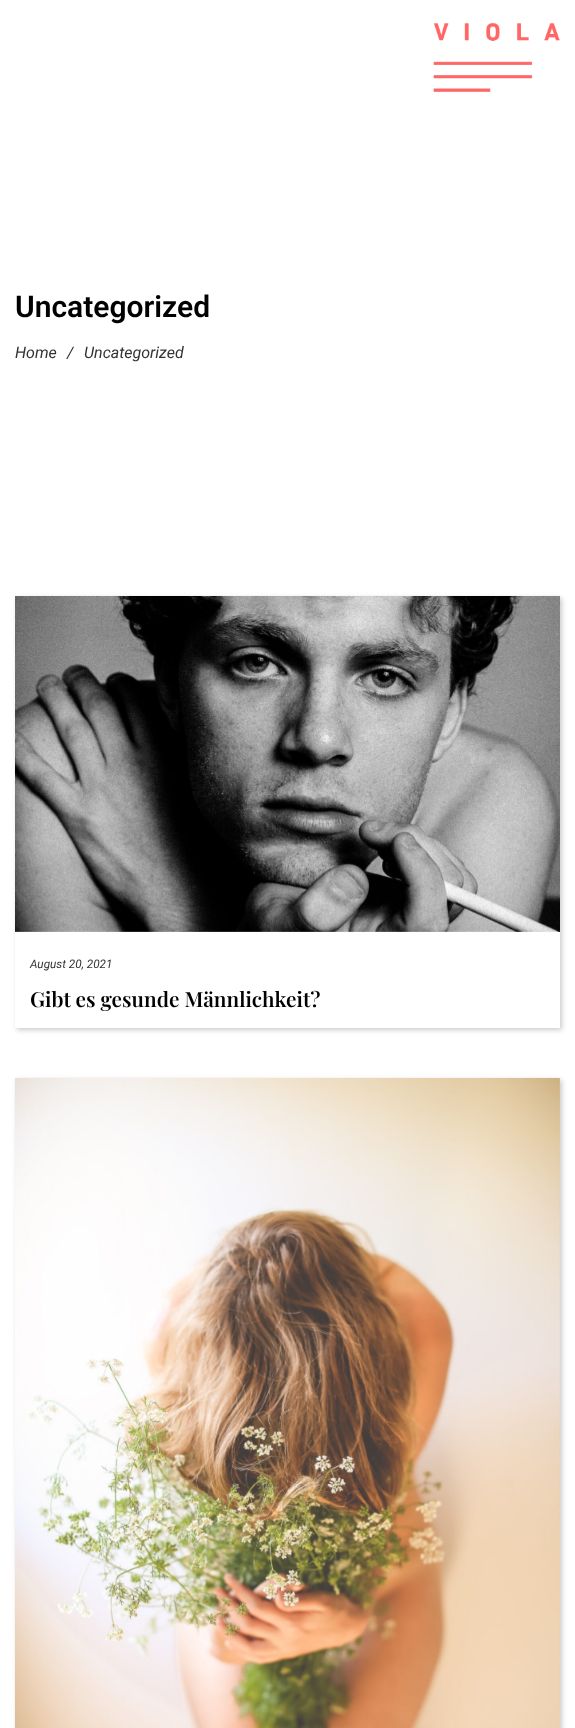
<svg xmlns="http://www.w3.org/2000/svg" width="575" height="1728">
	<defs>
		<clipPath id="clip1"><path d="M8 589H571V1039H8ZM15 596H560V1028H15Z" clip-rule="evenodd" /></clipPath>
	</defs>
	<rect width="100%" height="100%" fill="#FFFFFF" />
	<image x="433" y="22" width="127" height="70" href="assets/img1.png" />
	<text x="15" y="317" font-family="Roboto" font-size="30" font-weight="600" fill="#000000">Uncategorized</text>
	<g font-family="Roboto" font-size="16" font-style="italic" fill="#333333">
		<text x="15" y="358">Home</text>
		<text x="67" y="358">/</text>
		<text x="84" y="358">Uncategorized</text>
	</g>
	<g clip-path="url(#clip1)">
		<rect x="17" y="598" width="545" height="432" fill="#BEBEBE" fill-opacity="0.8" filter="blur(2.5px)" />
	</g>
	<image x="15" y="596" width="545" height="336" href="assets/img2.png" />
	<text x="30" y="968" font-family="Roboto" font-size="11.75" font-style="italic" fill="#333333">August 20, 2021</text>
	<text x="30" y="1007" font-family="Playfair Display" font-size="20.8" font-weight="600" fill="#000000">Gibt es gesunde Männlichkeit?</text>
	<rect x="17" y="1080" width="545" height="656" fill="#BEBEBE" fill-opacity="0.8" filter="blur(2.5px)" />
	<image x="15" y="1078" width="545" height="650" href="assets/img3.png" />
</svg>
